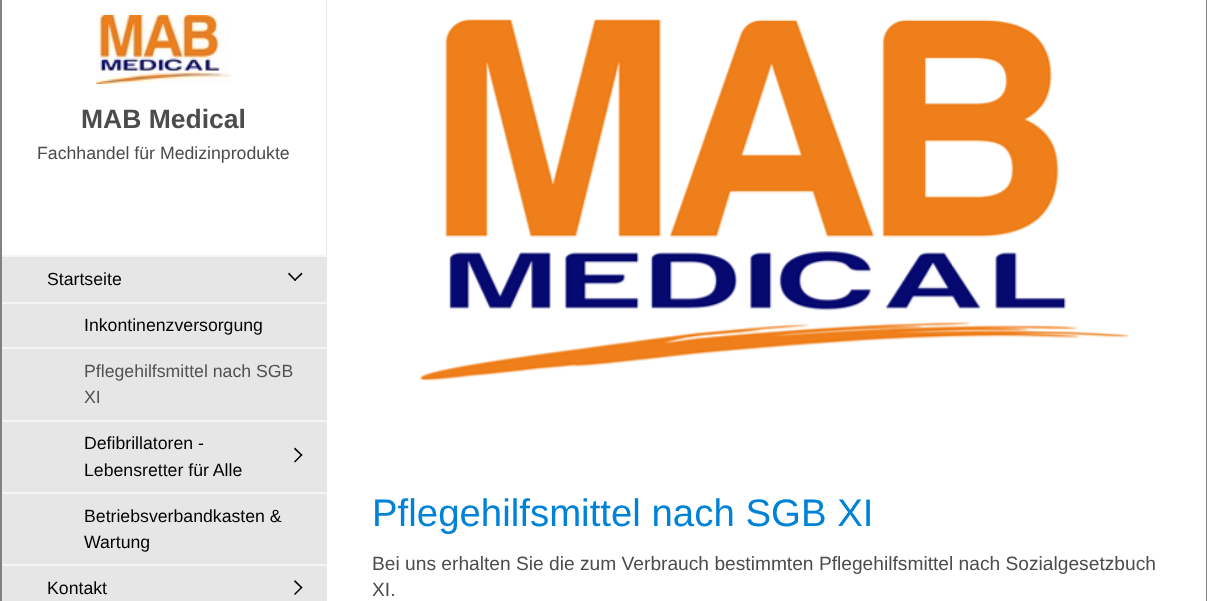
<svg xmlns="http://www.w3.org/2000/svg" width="1207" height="601">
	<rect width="100%" height="100%" fill="#FFFFFF" />
	<rect x="1206" y="0" width="1" height="601" fill="#818181" />
	<rect x="0" y="0" width="2" height="601" fill="#818181" />
	<rect x="2" y="257" width="325" height="344" fill="#E6E6E6" />
	<rect x="326" y="0" width="1" height="255" fill="#E6E6E6" />
	<image x="96" y="15" width="135" height="69" href="assets/img1.png" />
	<text x="81" y="128" font-family="Liberation Sans" font-size="26.5" font-weight="700" fill="#4C4C4C">MAB Medical</text>
	<text x="37" y="159" font-family="Liberation Sans" font-size="17.7" fill="#4C4C4C">Fachhandel für Medizinprodukte</text>
	<rect x="2" y="255" width="325" height="2" fill="#F5F5F5" />
	<text x="47" y="285" font-family="Liberation Sans" font-size="17.7" fill="#000000">Startseite</text>
	<path d="M302.5 274L295 281L294 280L301.5 272.5Z" fill="#000000" />
	<path d="M296 280L295 281L288 274L289 272.5Z" fill="#000000" />
	<rect x="2" y="302" width="325" height="2" fill="#F5F5F5" />
	<text x="84" y="331" font-family="Liberation Sans" font-size="17.7" fill="#000000">Inkontinenzversorgung</text>
	<rect x="2" y="347" width="325" height="2" fill="#F5F5F5" />
	<g font-family="Liberation Sans" font-size="17.7" fill="#525252">
		<text x="84" y="377">Pflegehilfsmittel nach SGB</text>
		<text x="84" y="403">XI</text>
	</g>
	<rect x="2" y="420" width="325" height="2" fill="#F5F5F5" />
	<text x="84" y="449" font-family="Liberation Sans" font-size="17.7" fill="#000000">Defibrillatoren -</text>
	<path d="M295 447.5L302.5 455L301.5 456L294 449Z" fill="#000000" />
	<path d="M301.5 454L302.5 455L295 462.5L294 461.5Z" fill="#000000" />
	<text x="84" y="476" font-family="Liberation Sans" font-size="17.7" fill="#000000">Lebensretter für Alle</text>
	<rect x="2" y="492" width="325" height="2" fill="#F5F5F5" />
	<g font-family="Liberation Sans" font-size="17.7" fill="#000000">
		<text x="84" y="522">Betriebsverbandkasten &amp;</text>
		<text x="84" y="548">Wartung</text>
	</g>
	<rect x="2" y="564" width="325" height="2" fill="#F5F5F5" />
	<text x="47" y="594" font-family="Liberation Sans" font-size="17.7" fill="#000000">Kontakt</text>
	<path d="M295 580L302.5 587.5L301.5 588.5L294 581.5Z" fill="#000000" />
	<path d="M301.5 586.5L302.5 587.5L295 595L294 594Z" fill="#000000" />
	<image x="420" y="19" width="710" height="362" href="assets/img2.png" />
	<text x="372" y="526" font-family="Liberation Sans" font-size="38.4" fill="#0082D7">Pflegehilfsmittel nach SGB XI</text>
	<g font-family="Liberation Sans" font-size="19.2" fill="#4C4C4C">
		<text x="372" y="570">Bei uns erhalten Sie die zum Verbrauch bestimmten Pflegehilfsmittel nach Sozialgesetzbuch</text>
		<text x="372" y="596">XI.</text>
	</g>
</svg>
